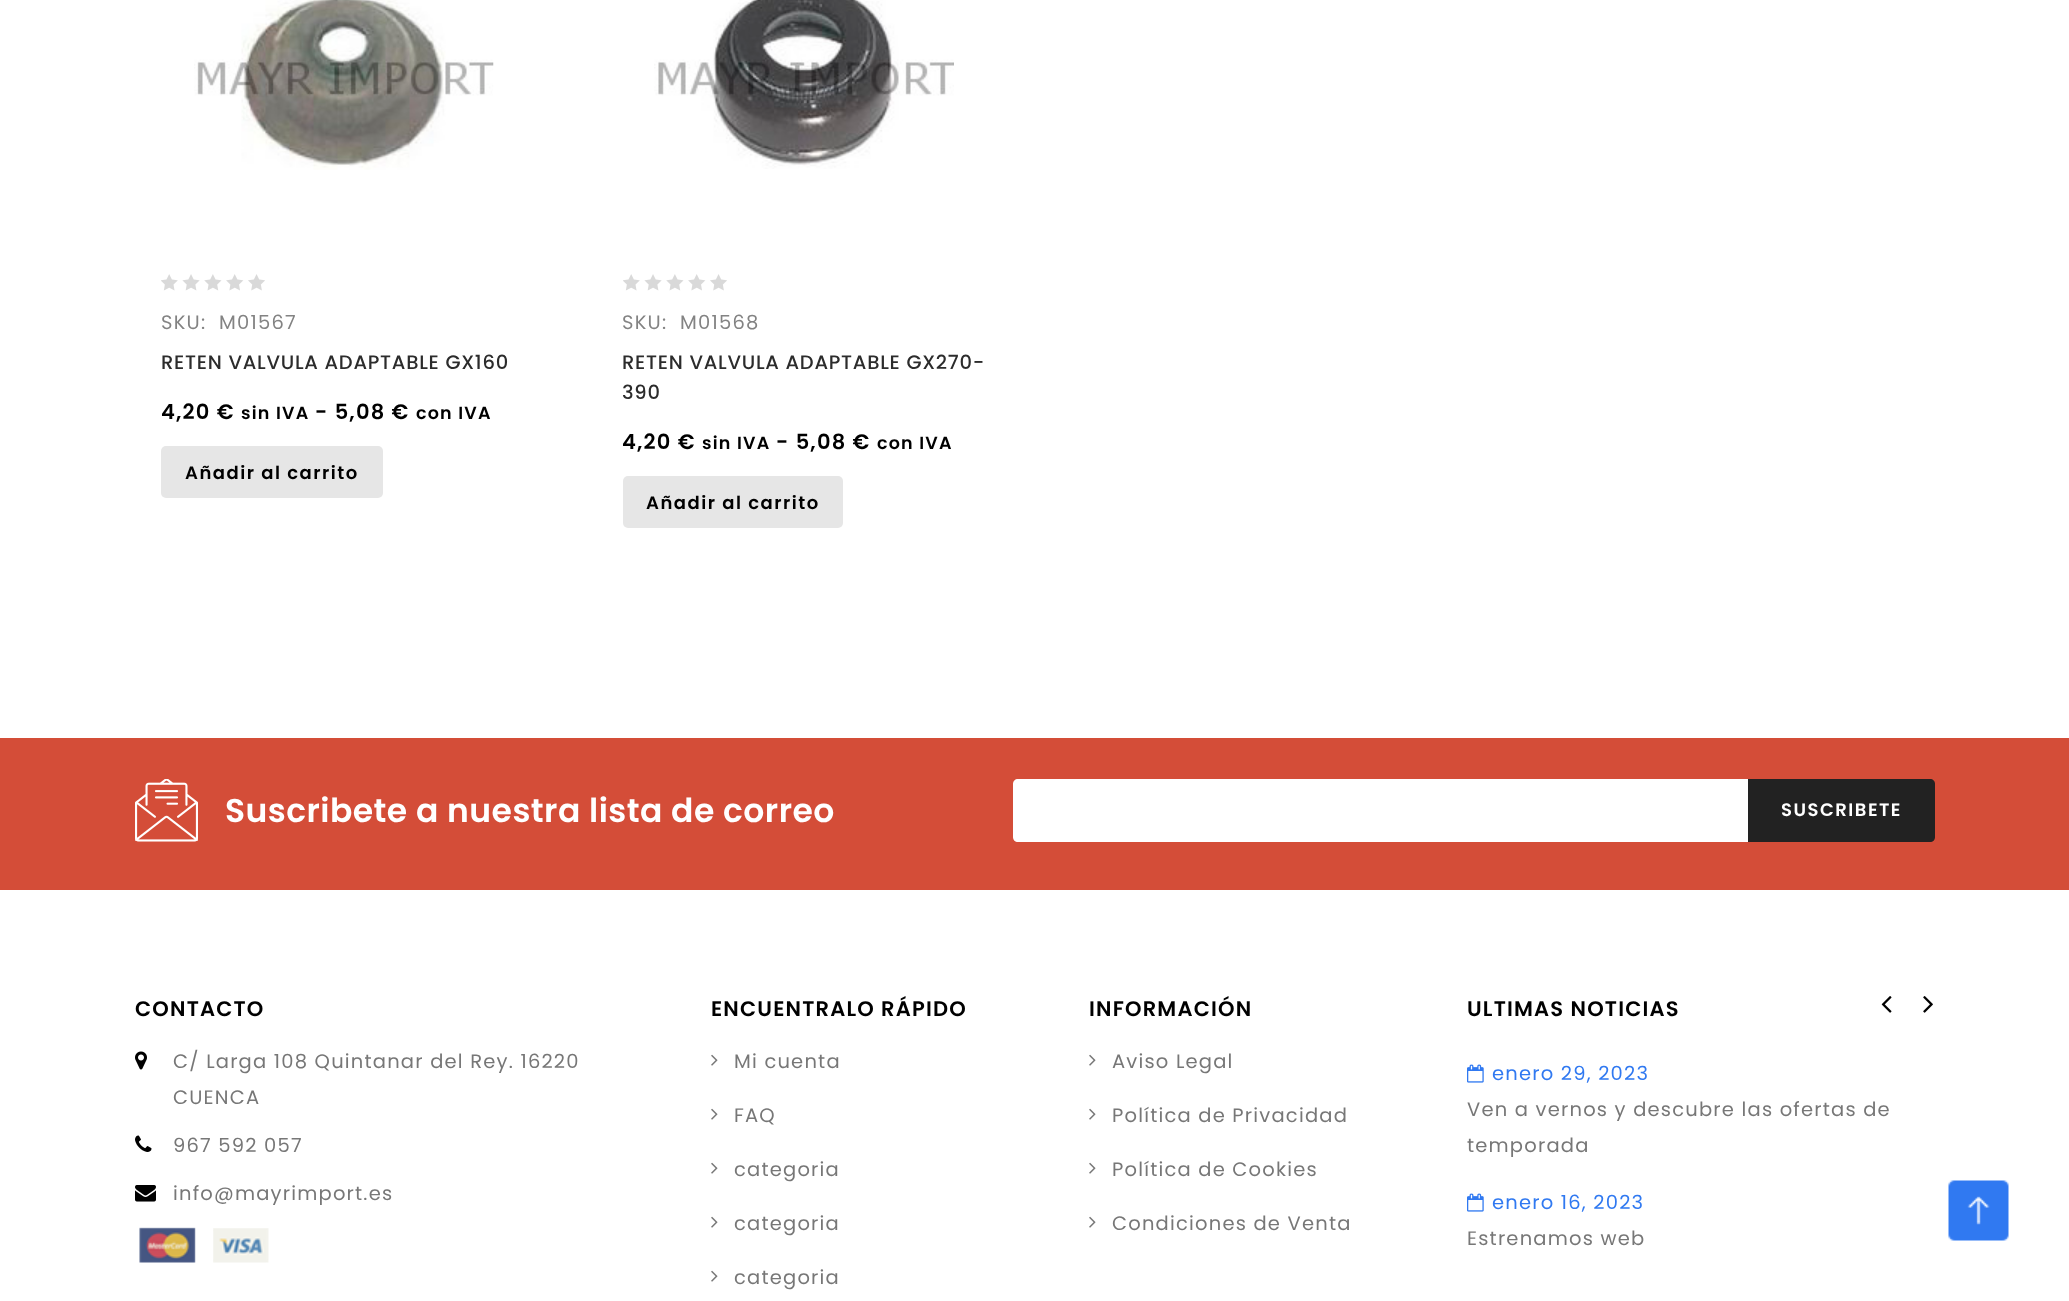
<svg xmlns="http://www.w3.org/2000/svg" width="2069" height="1301">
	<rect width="100%" height="100%" fill="#FFFFFF" />
	<image x="194" y="0" width="300" height="170" href="assets/img1.png" />
	<image x="161" y="274" width="104" height="17" href="assets/img2.png" />
	<text x="161" y="329" font-family="Poppins" font-size="19.5" letter-spacing="1.2" fill="#838383" xml:space="preserve">SKU:  M01567</text>
	<text x="161" y="369" font-family="Poppins" font-size="19.5" font-weight="500" letter-spacing="0.75" fill="#2C2C2C">RETEN VALVULA ADAPTABLE GX160</text>
	<text x="161" y="419" font-family="Poppins" font-size="21" font-weight="600" letter-spacing="1.2" fill="#000000">4,20 €</text>
	<text x="241" y="419" font-family="Poppins" font-size="17.5" font-weight="600" letter-spacing="1.2" fill="#000000">sin IVA</text>
	<text x="315" y="419" font-family="Poppins" font-size="21" font-weight="600" letter-spacing="1.2" fill="#000000">- 5,08 €</text>
	<text x="416" y="419" font-family="Poppins" font-size="17.5" font-weight="600" letter-spacing="1.2" fill="#000000">con IVA</text>
	<rect x="161" y="446" width="222" height="52" rx="5" fill="#E6E6E6" />
	<text x="185" y="479" font-family="Poppins" font-size="18" font-weight="600" letter-spacing="1.5" fill="#000000">Añadir al carrito</text>
	<image x="654" y="0" width="300" height="169" href="assets/img3.png" />
	<image x="623" y="274" width="104" height="17" href="assets/img2.png" />
	<text x="622" y="329" font-family="Poppins" font-size="19.5" letter-spacing="1.2" fill="#838383" xml:space="preserve">SKU:  M01568</text>
	<g font-family="Poppins" font-size="19.5" font-weight="500" letter-spacing="0.75" fill="#2C2C2C">
		<text x="622" y="369">RETEN VALVULA ADAPTABLE GX270-</text>
		<text x="622" y="399">390</text>
	</g>
	<text x="622" y="449" font-family="Poppins" font-size="21" font-weight="600" letter-spacing="1.2" fill="#000000">4,20 €</text>
	<text x="702" y="449" font-family="Poppins" font-size="17.5" font-weight="600" letter-spacing="1.2" fill="#000000">sin IVA</text>
	<text x="776" y="449" font-family="Poppins" font-size="21" font-weight="600" letter-spacing="1.2" fill="#000000">- 5,08 €</text>
	<text x="877" y="449" font-family="Poppins" font-size="17.5" font-weight="600" letter-spacing="1.2" fill="#000000">con IVA</text>
	<rect x="623" y="476" width="220" height="52" rx="5" fill="#E6E6E6" />
	<text x="646" y="509" font-family="Poppins" font-size="18" font-weight="600" letter-spacing="1.5" fill="#000000">Añadir al carrito</text>
	<rect x="0" y="738" width="2069" height="152" fill="#D44D38" />
	<image x="135" y="779" width="63" height="63" href="assets/img4.png" />
	<text x="225" y="822" font-family="Poppins" font-size="33" font-weight="600" letter-spacing="0.45" fill="#FFFFFF">Suscribete a nuestra lista de correo</text>
	<path d="M1018 779H1748V842H1018C1015 842 1013 840 1013 837V784C1013 781 1015 779 1018 779Z" fill="#FFFFFF" />
	<path d="M1748 779H1930C1933 779 1935 781 1935 784V837C1935 840 1933 842 1930 842H1748Z" fill="#222222" />
	<text x="1781" y="816" font-family="Poppins" font-size="18" font-weight="600" letter-spacing="1.5" fill="#FFFFFF">SUSCRIBETE</text>
	<text x="135" y="1016" font-family="Poppins" font-size="21" font-weight="600" letter-spacing="1.2" fill="#000000">CONTACTO</text>
	<image x="135" y="1051" width="12" height="19" href="assets/img5.png" />
	<g font-family="Poppins" font-size="19.5" letter-spacing="1.2" fill="#777777">
		<text x="173" y="1068">C/ Larga 108 Quintanar del Rey. 16220</text>
		<text x="173" y="1104">CUENCA</text>
	</g>
	<image x="135" y="1135" width="17" height="17" href="assets/img6.png" />
	<text x="173" y="1152" font-family="Poppins" font-size="19.5" letter-spacing="1.2" fill="#777777">967 592 057</text>
	<image x="135" y="1185" width="21" height="17" href="assets/img7.png" />
	<text x="173" y="1200" font-family="Poppins" font-size="19.5" letter-spacing="1.2" fill="#777777">info@mayrimport.es</text>
	<image x="139" y="1227" width="57" height="36" href="assets/img8.png" />
	<image x="213" y="1228" width="56" height="35" href="assets/img9.png" />
	<text x="711" y="1016" font-family="Poppins" font-size="21" font-weight="600" letter-spacing="1.2" fill="#000000">ENCUENTRALO RÁPIDO</text>
	<image x="711" y="1054" width="7" height="12" href="assets/img10.png" />
	<text x="734" y="1068" font-family="Poppins" font-size="19.5" letter-spacing="1.2" fill="#777777">Mi cuenta</text>
	<image x="711" y="1108" width="7" height="12" href="assets/img10.png" />
	<text x="734" y="1122" font-family="Poppins" font-size="19.5" letter-spacing="1.2" fill="#777777">FAQ</text>
	<image x="711" y="1162" width="7" height="12" href="assets/img10.png" />
	<text x="734" y="1176" font-family="Poppins" font-size="19.5" letter-spacing="1.2" fill="#777777">categoria</text>
	<image x="711" y="1216" width="7" height="12" href="assets/img10.png" />
	<text x="734" y="1230" font-family="Poppins" font-size="19.5" letter-spacing="1.2" fill="#777777">categoria</text>
	<image x="711" y="1270" width="7" height="12" href="assets/img10.png" />
	<text x="734" y="1284" font-family="Poppins" font-size="19.5" letter-spacing="1.2" fill="#777777">categoria</text>
	<text x="1089" y="1016" font-family="Poppins" font-size="21" font-weight="600" letter-spacing="1.2" fill="#000000">INFORMACIÓN</text>
	<image x="1089" y="1054" width="7" height="12" href="assets/img10.png" />
	<text x="1112" y="1068" font-family="Poppins" font-size="19.5" letter-spacing="1.2" fill="#777777">Aviso Legal</text>
	<image x="1089" y="1108" width="7" height="12" href="assets/img10.png" />
	<text x="1112" y="1122" font-family="Poppins" font-size="19.5" letter-spacing="1.2" fill="#777777">Política de Privacidad</text>
	<image x="1089" y="1162" width="7" height="12" href="assets/img10.png" />
	<text x="1112" y="1176" font-family="Poppins" font-size="19.5" letter-spacing="1.2" fill="#777777">Política de Cookies</text>
	<image x="1089" y="1216" width="7" height="12" href="assets/img10.png" />
	<text x="1112" y="1230" font-family="Poppins" font-size="19.5" letter-spacing="1.2" fill="#777777">Condiciones de Venta</text>
	<text x="1467" y="1016" font-family="Poppins" font-size="21" font-weight="600" letter-spacing="1.2" fill="#000000">ULTIMAS NOTICIAS</text>
	<image x="1881" y="996" width="11" height="17" href="assets/img11.png" />
	<image x="1923" y="996" width="10" height="17" href="assets/img12.png" />
	<image x="1467" y="1064" width="17" height="19" href="assets/img13.png" />
	<text x="1492" y="1080" font-family="Poppins" font-size="19.5" letter-spacing="1.2" fill="#3079F1">enero 29, 2023</text>
	<g font-family="Poppins" font-size="19.5" letter-spacing="1.2" fill="#777777">
		<text x="1467" y="1116">Ven a vernos y descubre las ofertas de</text>
		<text x="1467" y="1152">temporada</text>
	</g>
	<image x="1467" y="1193" width="17" height="19" href="assets/img13.png" />
	<text x="1492" y="1209" font-family="Poppins" font-size="19.5" letter-spacing="1.2" fill="#3079F1">enero 16, 2023</text>
	<text x="1467" y="1245" font-family="Poppins" font-size="19.5" letter-spacing="1.2" fill="#777777">Estrenamos web</text>
	<image x="1948" y="1180" width="61" height="61" href="assets/img14.png" />
</svg>
